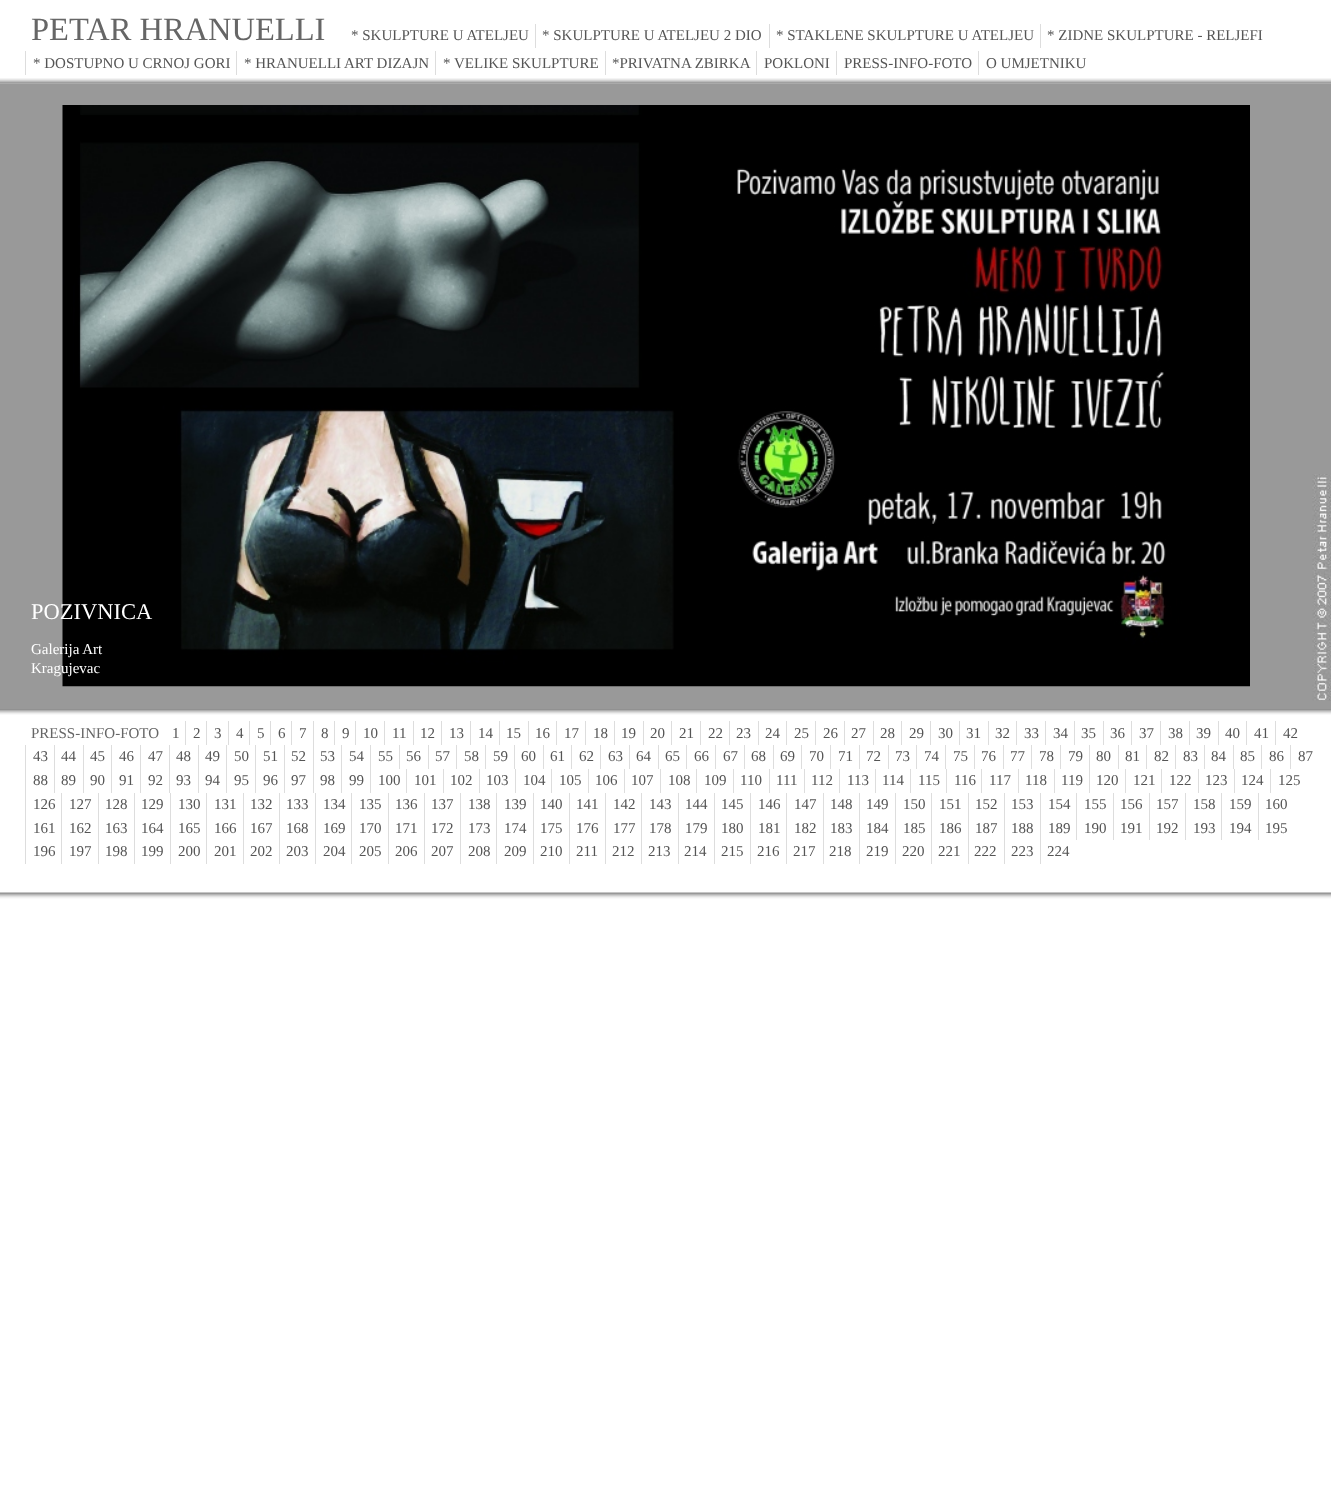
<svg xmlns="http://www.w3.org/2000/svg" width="1331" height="1496">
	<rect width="100%" height="100%" fill="#FFFFFF" />
	<image x="0" y="78" width="1331" height="6" href="assets/img1.png" />
	<text x="31" y="40" font-family="Liberation Serif" font-size="32.5" fill="#666666">PETAR HRANUELLI</text>
	<text x="351" y="40" font-family="Liberation Serif" font-size="15" fill="#555555">* SKULPTURE U ATELJEU</text>
	<rect x="535" y="24" width="1" height="24" fill="#DDDDDD" />
	<text x="542" y="40" font-family="Liberation Serif" font-size="15" fill="#555555">* SKULPTURE U ATELJEU 2 DIO</text>
	<rect x="769" y="24" width="1" height="24" fill="#DDDDDD" />
	<text x="776" y="40" font-family="Liberation Serif" font-size="15" fill="#555555">* STAKLENE SKULPTURE U ATELJEU</text>
	<rect x="1040" y="24" width="1" height="24" fill="#DDDDDD" />
	<text x="1047" y="40" font-family="Liberation Serif" font-size="15" fill="#555555">* ZIDNE SKULPTURE - RELJEFI</text>
	<rect x="25" y="51" width="1" height="24" fill="#DDDDDD" />
	<text x="33" y="68" font-family="Liberation Serif" font-size="15" fill="#555555">* DOSTUPNO U CRNOJ GORI</text>
	<rect x="236" y="51" width="1" height="24" fill="#DDDDDD" />
	<text x="244" y="68" font-family="Liberation Serif" font-size="15" fill="#555555">* HRANUELLI ART DIZAJN</text>
	<rect x="435" y="51" width="1" height="24" fill="#DDDDDD" />
	<text x="443" y="68" font-family="Liberation Serif" font-size="15" fill="#555555">* VELIKE SKULPTURE</text>
	<rect x="605" y="51" width="1" height="24" fill="#DDDDDD" />
	<text x="612" y="68" font-family="Liberation Serif" font-size="15" fill="#555555">*PRIVATNA ZBIRKA</text>
	<rect x="756" y="51" width="1" height="24" fill="#DDDDDD" />
	<text x="764" y="68" font-family="Liberation Serif" font-size="15" fill="#555555">POKLONI</text>
	<rect x="836" y="51" width="1" height="24" fill="#DDDDDD" />
	<text x="844" y="68" font-family="Liberation Serif" font-size="15" fill="#555555">PRESS-INFO-FOTO</text>
	<rect x="978" y="51" width="1" height="24" fill="#DDDDDD" />
	<text x="986" y="68" font-family="Liberation Serif" font-size="15" fill="#555555">O UMJETNIKU</text>
	<rect x="0" y="84" width="1331" height="625" fill="#999999" />
	<image x="62" y="105" width="1188" height="582" href="assets/img2.png" />
	<image x="1312" y="474" width="19" height="227" href="assets/img3.png" />
	<text x="31" y="619" font-family="Liberation Serif" font-size="22.5" fill="#FFFFFF">POZIVNICA</text>
	<g font-family="Liberation Serif" font-size="15" fill="#FFFFFF">
		<text x="31" y="654">Galerija Art</text>
		<text x="31" y="673">Kragujevac</text>
	</g>
	<image x="0" y="709" width="1331" height="6" href="assets/img4.png" />
	<text x="31" y="738" font-family="Liberation Serif" font-size="15" fill="#666666">PRESS-INFO-FOTO</text>
	<text x="172" y="738" font-family="Liberation Serif" font-size="15" fill="#555555">1</text>
	<rect x="185" y="721" width="1" height="24" fill="#DDDDDD" />
	<text x="193" y="738" font-family="Liberation Serif" font-size="15" fill="#555555">2</text>
	<rect x="206" y="721" width="1" height="24" fill="#DDDDDD" />
	<text x="214" y="738" font-family="Liberation Serif" font-size="15" fill="#555555">3</text>
	<rect x="228" y="721" width="1" height="24" fill="#DDDDDD" />
	<text x="236" y="738" font-family="Liberation Serif" font-size="15" fill="#555555">4</text>
	<rect x="249" y="721" width="1" height="24" fill="#DDDDDD" />
	<text x="257" y="738" font-family="Liberation Serif" font-size="15" fill="#555555">5</text>
	<rect x="270" y="721" width="1" height="24" fill="#DDDDDD" />
	<text x="278" y="738" font-family="Liberation Serif" font-size="15" fill="#555555">6</text>
	<rect x="291" y="721" width="1" height="24" fill="#DDDDDD" />
	<text x="299" y="738" font-family="Liberation Serif" font-size="15" fill="#555555">7</text>
	<rect x="313" y="721" width="1" height="72" fill="#DDDDDD" />
	<text x="321" y="738" font-family="Liberation Serif" font-size="15" fill="#555555">8</text>
	<rect x="334" y="721" width="1" height="24" fill="#DDDDDD" />
	<text x="342" y="738" font-family="Liberation Serif" font-size="15" fill="#555555">9</text>
	<rect x="355" y="721" width="1" height="24" fill="#DDDDDD" />
	<text x="363" y="738" font-family="Liberation Serif" font-size="15" fill="#555555">10</text>
	<rect x="384" y="721" width="1" height="24" fill="#DDDDDD" />
	<text x="392" y="738" font-family="Liberation Serif" font-size="15" fill="#555555">11</text>
	<rect x="413" y="721" width="1" height="24" fill="#DDDDDD" />
	<text x="420" y="738" font-family="Liberation Serif" font-size="15" fill="#555555">12</text>
	<rect x="441" y="721" width="1" height="24" fill="#DDDDDD" />
	<text x="449" y="738" font-family="Liberation Serif" font-size="15" fill="#555555">13</text>
	<rect x="470" y="721" width="1" height="24" fill="#DDDDDD" />
	<text x="478" y="738" font-family="Liberation Serif" font-size="15" fill="#555555">14</text>
	<rect x="499" y="721" width="1" height="24" fill="#DDDDDD" />
	<text x="506" y="738" font-family="Liberation Serif" font-size="15" fill="#555555">15</text>
	<rect x="528" y="721" width="1" height="24" fill="#DDDDDD" />
	<text x="535" y="738" font-family="Liberation Serif" font-size="15" fill="#555555">16</text>
	<rect x="556" y="721" width="1" height="24" fill="#DDDDDD" />
	<text x="564" y="738" font-family="Liberation Serif" font-size="15" fill="#555555">17</text>
	<rect x="585" y="721" width="1" height="24" fill="#DDDDDD" />
	<text x="593" y="738" font-family="Liberation Serif" font-size="15" fill="#555555">18</text>
	<rect x="614" y="721" width="1" height="24" fill="#DDDDDD" />
	<text x="621" y="738" font-family="Liberation Serif" font-size="15" fill="#555555">19</text>
	<rect x="643" y="721" width="1" height="24" fill="#DDDDDD" />
	<text x="650" y="738" font-family="Liberation Serif" font-size="15" fill="#555555">20</text>
	<rect x="671" y="721" width="1" height="24" fill="#DDDDDD" />
	<text x="679" y="738" font-family="Liberation Serif" font-size="15" fill="#555555">21</text>
	<rect x="700" y="721" width="1" height="24" fill="#DDDDDD" />
	<text x="708" y="738" font-family="Liberation Serif" font-size="15" fill="#555555">22</text>
	<rect x="729" y="721" width="1" height="24" fill="#DDDDDD" />
	<text x="736" y="738" font-family="Liberation Serif" font-size="15" fill="#555555">23</text>
	<rect x="758" y="721" width="1" height="24" fill="#DDDDDD" />
	<text x="765" y="738" font-family="Liberation Serif" font-size="15" fill="#555555">24</text>
	<rect x="786" y="721" width="1" height="24" fill="#DDDDDD" />
	<text x="794" y="738" font-family="Liberation Serif" font-size="15" fill="#555555">25</text>
	<rect x="815" y="721" width="1" height="24" fill="#DDDDDD" />
	<text x="823" y="738" font-family="Liberation Serif" font-size="15" fill="#555555">26</text>
	<rect x="844" y="721" width="1" height="24" fill="#DDDDDD" />
	<text x="851" y="738" font-family="Liberation Serif" font-size="15" fill="#555555">27</text>
	<rect x="873" y="721" width="1" height="24" fill="#DDDDDD" />
	<text x="880" y="738" font-family="Liberation Serif" font-size="15" fill="#555555">28</text>
	<rect x="901" y="721" width="1" height="24" fill="#DDDDDD" />
	<text x="909" y="738" font-family="Liberation Serif" font-size="15" fill="#555555">29</text>
	<rect x="930" y="721" width="1" height="24" fill="#DDDDDD" />
	<text x="938" y="738" font-family="Liberation Serif" font-size="15" fill="#555555">30</text>
	<rect x="959" y="721" width="1" height="24" fill="#DDDDDD" />
	<text x="966" y="738" font-family="Liberation Serif" font-size="15" fill="#555555">31</text>
	<rect x="988" y="721" width="1" height="24" fill="#DDDDDD" />
	<text x="995" y="738" font-family="Liberation Serif" font-size="15" fill="#555555">32</text>
	<rect x="1016" y="721" width="1" height="24" fill="#DDDDDD" />
	<text x="1024" y="738" font-family="Liberation Serif" font-size="15" fill="#555555">33</text>
	<rect x="1045" y="721" width="1" height="24" fill="#DDDDDD" />
	<text x="1053" y="738" font-family="Liberation Serif" font-size="15" fill="#555555">34</text>
	<rect x="1074" y="721" width="1" height="24" fill="#DDDDDD" />
	<text x="1081" y="738" font-family="Liberation Serif" font-size="15" fill="#555555">35</text>
	<rect x="1103" y="721" width="1" height="24" fill="#DDDDDD" />
	<text x="1110" y="738" font-family="Liberation Serif" font-size="15" fill="#555555">36</text>
	<rect x="1131" y="721" width="1" height="24" fill="#DDDDDD" />
	<text x="1139" y="738" font-family="Liberation Serif" font-size="15" fill="#555555">37</text>
	<rect x="1160" y="721" width="1" height="24" fill="#DDDDDD" />
	<text x="1168" y="738" font-family="Liberation Serif" font-size="15" fill="#555555">38</text>
	<rect x="1189" y="721" width="1" height="24" fill="#DDDDDD" />
	<text x="1196" y="738" font-family="Liberation Serif" font-size="15" fill="#555555">39</text>
	<rect x="1218" y="721" width="1" height="24" fill="#DDDDDD" />
	<text x="1225" y="738" font-family="Liberation Serif" font-size="15" fill="#555555">40</text>
	<rect x="1246" y="721" width="1" height="24" fill="#DDDDDD" />
	<text x="1254" y="738" font-family="Liberation Serif" font-size="15" fill="#555555">41</text>
	<rect x="1275" y="721" width="1" height="24" fill="#DDDDDD" />
	<text x="1283" y="738" font-family="Liberation Serif" font-size="15" fill="#555555">42</text>
	<rect x="25" y="745" width="1" height="71" fill="#DDDDDD" />
	<text x="33" y="761" font-family="Liberation Serif" font-size="15" fill="#555555">43</text>
	<rect x="54" y="745" width="1" height="48" fill="#DDDDDD" />
	<text x="61" y="761" font-family="Liberation Serif" font-size="15" fill="#555555">44</text>
	<rect x="83" y="745" width="1" height="48" fill="#DDDDDD" />
	<text x="90" y="761" font-family="Liberation Serif" font-size="15" fill="#555555">45</text>
	<rect x="111" y="745" width="1" height="48" fill="#DDDDDD" />
	<text x="119" y="761" font-family="Liberation Serif" font-size="15" fill="#555555">46</text>
	<rect x="140" y="745" width="1" height="48" fill="#DDDDDD" />
	<text x="148" y="761" font-family="Liberation Serif" font-size="15" fill="#555555">47</text>
	<rect x="169" y="745" width="1" height="48" fill="#DDDDDD" />
	<text x="176" y="761" font-family="Liberation Serif" font-size="15" fill="#555555">48</text>
	<rect x="198" y="745" width="1" height="48" fill="#DDDDDD" />
	<text x="205" y="761" font-family="Liberation Serif" font-size="15" fill="#555555">49</text>
	<rect x="226" y="745" width="1" height="48" fill="#DDDDDD" />
	<text x="234" y="761" font-family="Liberation Serif" font-size="15" fill="#555555">50</text>
	<rect x="255" y="745" width="1" height="48" fill="#DDDDDD" />
	<text x="263" y="761" font-family="Liberation Serif" font-size="15" fill="#555555">51</text>
	<rect x="284" y="745" width="1" height="48" fill="#DDDDDD" />
	<g font-family="Liberation Serif" font-size="15" fill="#555555">
		<text x="291" y="761">52</text>
		<text x="320" y="761">53</text>
	</g>
	<rect x="341" y="745" width="1" height="48" fill="#DDDDDD" />
	<text x="349" y="761" font-family="Liberation Serif" font-size="15" fill="#555555">54</text>
	<rect x="370" y="745" width="1" height="48" fill="#DDDDDD" />
	<text x="378" y="761" font-family="Liberation Serif" font-size="15" fill="#555555">55</text>
	<rect x="399" y="745" width="1" height="24" fill="#DDDDDD" />
	<text x="406" y="761" font-family="Liberation Serif" font-size="15" fill="#555555">56</text>
	<rect x="428" y="745" width="1" height="24" fill="#DDDDDD" />
	<text x="435" y="761" font-family="Liberation Serif" font-size="15" fill="#555555">57</text>
	<rect x="456" y="745" width="1" height="24" fill="#DDDDDD" />
	<text x="464" y="761" font-family="Liberation Serif" font-size="15" fill="#555555">58</text>
	<rect x="485" y="745" width="1" height="24" fill="#DDDDDD" />
	<text x="493" y="761" font-family="Liberation Serif" font-size="15" fill="#555555">59</text>
	<rect x="514" y="745" width="1" height="24" fill="#DDDDDD" />
	<text x="521" y="761" font-family="Liberation Serif" font-size="15" fill="#555555">60</text>
	<rect x="543" y="745" width="1" height="24" fill="#DDDDDD" />
	<text x="550" y="761" font-family="Liberation Serif" font-size="15" fill="#555555">61</text>
	<rect x="571" y="745" width="1" height="24" fill="#DDDDDD" />
	<text x="579" y="761" font-family="Liberation Serif" font-size="15" fill="#555555">62</text>
	<rect x="600" y="745" width="1" height="24" fill="#DDDDDD" />
	<text x="608" y="761" font-family="Liberation Serif" font-size="15" fill="#555555">63</text>
	<rect x="629" y="745" width="1" height="24" fill="#DDDDDD" />
	<text x="636" y="761" font-family="Liberation Serif" font-size="15" fill="#555555">64</text>
	<rect x="658" y="745" width="1" height="24" fill="#DDDDDD" />
	<text x="665" y="761" font-family="Liberation Serif" font-size="15" fill="#555555">65</text>
	<rect x="686" y="745" width="1" height="24" fill="#DDDDDD" />
	<text x="694" y="761" font-family="Liberation Serif" font-size="15" fill="#555555">66</text>
	<rect x="715" y="745" width="1" height="24" fill="#DDDDDD" />
	<text x="723" y="761" font-family="Liberation Serif" font-size="15" fill="#555555">67</text>
	<rect x="744" y="745" width="1" height="24" fill="#DDDDDD" />
	<text x="751" y="761" font-family="Liberation Serif" font-size="15" fill="#555555">68</text>
	<rect x="773" y="745" width="1" height="24" fill="#DDDDDD" />
	<text x="780" y="761" font-family="Liberation Serif" font-size="15" fill="#555555">69</text>
	<rect x="801" y="745" width="1" height="24" fill="#DDDDDD" />
	<text x="809" y="761" font-family="Liberation Serif" font-size="15" fill="#555555">70</text>
	<rect x="830" y="745" width="1" height="24" fill="#DDDDDD" />
	<text x="838" y="761" font-family="Liberation Serif" font-size="15" fill="#555555">71</text>
	<rect x="859" y="745" width="1" height="24" fill="#DDDDDD" />
	<text x="866" y="761" font-family="Liberation Serif" font-size="15" fill="#555555">72</text>
	<rect x="888" y="745" width="1" height="24" fill="#DDDDDD" />
	<text x="895" y="761" font-family="Liberation Serif" font-size="15" fill="#555555">73</text>
	<rect x="916" y="745" width="1" height="24" fill="#DDDDDD" />
	<text x="924" y="761" font-family="Liberation Serif" font-size="15" fill="#555555">74</text>
	<rect x="945" y="745" width="1" height="24" fill="#DDDDDD" />
	<text x="953" y="761" font-family="Liberation Serif" font-size="15" fill="#555555">75</text>
	<rect x="974" y="745" width="1" height="24" fill="#DDDDDD" />
	<text x="981" y="761" font-family="Liberation Serif" font-size="15" fill="#555555">76</text>
	<rect x="1003" y="745" width="1" height="24" fill="#DDDDDD" />
	<text x="1010" y="761" font-family="Liberation Serif" font-size="15" fill="#555555">77</text>
	<rect x="1031" y="745" width="1" height="24" fill="#DDDDDD" />
	<text x="1039" y="761" font-family="Liberation Serif" font-size="15" fill="#555555">78</text>
	<rect x="1060" y="745" width="1" height="24" fill="#DDDDDD" />
	<text x="1068" y="761" font-family="Liberation Serif" font-size="15" fill="#555555">79</text>
	<rect x="1089" y="745" width="1" height="48" fill="#DDDDDD" />
	<text x="1096" y="761" font-family="Liberation Serif" font-size="15" fill="#555555">80</text>
	<rect x="1118" y="745" width="1" height="24" fill="#DDDDDD" />
	<text x="1125" y="761" font-family="Liberation Serif" font-size="15" fill="#555555">81</text>
	<rect x="1146" y="745" width="1" height="24" fill="#DDDDDD" />
	<text x="1154" y="761" font-family="Liberation Serif" font-size="15" fill="#555555">82</text>
	<rect x="1175" y="745" width="1" height="24" fill="#DDDDDD" />
	<text x="1183" y="761" font-family="Liberation Serif" font-size="15" fill="#555555">83</text>
	<rect x="1204" y="745" width="1" height="24" fill="#DDDDDD" />
	<text x="1211" y="761" font-family="Liberation Serif" font-size="15" fill="#555555">84</text>
	<rect x="1233" y="745" width="1" height="24" fill="#DDDDDD" />
	<text x="1240" y="761" font-family="Liberation Serif" font-size="15" fill="#555555">85</text>
	<rect x="1261" y="745" width="1" height="24" fill="#DDDDDD" />
	<text x="1269" y="761" font-family="Liberation Serif" font-size="15" fill="#555555">86</text>
	<rect x="1290" y="745" width="1" height="24" fill="#DDDDDD" />
	<g font-family="Liberation Serif" font-size="15" fill="#555555">
		<text x="1298" y="761">87</text>
		<text x="33" y="785">88</text>
		<text x="61" y="785">89</text>
		<text x="90" y="785">90</text>
		<text x="119" y="785">91</text>
		<text x="148" y="785">92</text>
		<text x="176" y="785">93</text>
		<text x="205" y="785">94</text>
		<text x="234" y="785">95</text>
		<text x="263" y="785">96</text>
		<text x="291" y="785">97</text>
		<text x="320" y="785">98</text>
		<text x="349" y="785">99</text>
		<text x="378" y="785">100</text>
	</g>
	<rect x="406" y="769" width="1" height="24" fill="#DDDDDD" />
	<text x="414" y="785" font-family="Liberation Serif" font-size="15" fill="#555555">101</text>
	<rect x="443" y="769" width="1" height="24" fill="#DDDDDD" />
	<text x="450" y="785" font-family="Liberation Serif" font-size="15" fill="#555555">102</text>
	<rect x="479" y="769" width="1" height="24" fill="#DDDDDD" />
	<text x="486" y="785" font-family="Liberation Serif" font-size="15" fill="#555555">103</text>
	<rect x="515" y="769" width="1" height="24" fill="#DDDDDD" />
	<text x="523" y="785" font-family="Liberation Serif" font-size="15" fill="#555555">104</text>
	<rect x="551" y="769" width="1" height="24" fill="#DDDDDD" />
	<text x="559" y="785" font-family="Liberation Serif" font-size="15" fill="#555555">105</text>
	<rect x="588" y="769" width="1" height="24" fill="#DDDDDD" />
	<text x="595" y="785" font-family="Liberation Serif" font-size="15" fill="#555555">106</text>
	<rect x="624" y="769" width="1" height="24" fill="#DDDDDD" />
	<text x="631" y="785" font-family="Liberation Serif" font-size="15" fill="#555555">107</text>
	<rect x="660" y="769" width="1" height="24" fill="#DDDDDD" />
	<text x="668" y="785" font-family="Liberation Serif" font-size="15" fill="#555555">108</text>
	<rect x="696" y="769" width="1" height="24" fill="#DDDDDD" />
	<text x="704" y="785" font-family="Liberation Serif" font-size="15" fill="#555555">109</text>
	<rect x="733" y="769" width="1" height="24" fill="#DDDDDD" />
	<text x="740" y="785" font-family="Liberation Serif" font-size="15" fill="#555555">110</text>
	<rect x="769" y="769" width="1" height="24" fill="#DDDDDD" />
	<text x="776" y="785" font-family="Liberation Serif" font-size="15" fill="#555555">111</text>
	<rect x="804" y="769" width="1" height="24" fill="#DDDDDD" />
	<text x="811" y="785" font-family="Liberation Serif" font-size="15" fill="#555555">112</text>
	<rect x="839" y="769" width="1" height="24" fill="#DDDDDD" />
	<text x="847" y="785" font-family="Liberation Serif" font-size="15" fill="#555555">113</text>
	<rect x="875" y="769" width="1" height="24" fill="#DDDDDD" />
	<text x="882" y="785" font-family="Liberation Serif" font-size="15" fill="#555555">114</text>
	<rect x="910" y="769" width="1" height="24" fill="#DDDDDD" />
	<text x="918" y="785" font-family="Liberation Serif" font-size="15" fill="#555555">115</text>
	<rect x="946" y="769" width="1" height="24" fill="#DDDDDD" />
	<text x="954" y="785" font-family="Liberation Serif" font-size="15" fill="#555555">116</text>
	<rect x="981" y="769" width="1" height="24" fill="#DDDDDD" />
	<text x="989" y="785" font-family="Liberation Serif" font-size="15" fill="#555555">117</text>
	<rect x="1018" y="769" width="1" height="24" fill="#DDDDDD" />
	<text x="1025" y="785" font-family="Liberation Serif" font-size="15" fill="#555555">118</text>
	<rect x="1054" y="769" width="1" height="24" fill="#DDDDDD" />
	<g font-family="Liberation Serif" font-size="15" fill="#555555">
		<text x="1061" y="785">119</text>
		<text x="1096" y="785">120</text>
	</g>
	<rect x="1125" y="769" width="1" height="24" fill="#DDDDDD" />
	<text x="1133" y="785" font-family="Liberation Serif" font-size="15" fill="#555555">121</text>
	<rect x="1161" y="769" width="1" height="24" fill="#DDDDDD" />
	<text x="1169" y="785" font-family="Liberation Serif" font-size="15" fill="#555555">122</text>
	<rect x="1198" y="769" width="1" height="24" fill="#DDDDDD" />
	<text x="1205" y="785" font-family="Liberation Serif" font-size="15" fill="#555555">123</text>
	<rect x="1234" y="769" width="1" height="24" fill="#DDDDDD" />
	<text x="1241" y="785" font-family="Liberation Serif" font-size="15" fill="#555555">124</text>
	<rect x="1270" y="769" width="1" height="24" fill="#DDDDDD" />
	<g font-family="Liberation Serif" font-size="15" fill="#555555">
		<text x="1278" y="785">125</text>
		<text x="33" y="809">126</text>
	</g>
	<rect x="61" y="793" width="1" height="71" fill="#DDDDDD" />
	<text x="69" y="809" font-family="Liberation Serif" font-size="15" fill="#555555">127</text>
	<rect x="98" y="793" width="1" height="71" fill="#DDDDDD" />
	<text x="105" y="809" font-family="Liberation Serif" font-size="15" fill="#555555">128</text>
	<rect x="134" y="793" width="1" height="71" fill="#DDDDDD" />
	<text x="141" y="809" font-family="Liberation Serif" font-size="15" fill="#555555">129</text>
	<rect x="170" y="793" width="1" height="71" fill="#DDDDDD" />
	<text x="178" y="809" font-family="Liberation Serif" font-size="15" fill="#555555">130</text>
	<rect x="206" y="793" width="1" height="71" fill="#DDDDDD" />
	<text x="214" y="809" font-family="Liberation Serif" font-size="15" fill="#555555">131</text>
	<rect x="243" y="793" width="1" height="71" fill="#DDDDDD" />
	<text x="250" y="809" font-family="Liberation Serif" font-size="15" fill="#555555">132</text>
	<rect x="279" y="793" width="1" height="71" fill="#DDDDDD" />
	<text x="286" y="809" font-family="Liberation Serif" font-size="15" fill="#555555">133</text>
	<rect x="315" y="793" width="1" height="71" fill="#DDDDDD" />
	<text x="323" y="809" font-family="Liberation Serif" font-size="15" fill="#555555">134</text>
	<rect x="351" y="793" width="1" height="71" fill="#DDDDDD" />
	<text x="359" y="809" font-family="Liberation Serif" font-size="15" fill="#555555">135</text>
	<rect x="388" y="793" width="1" height="71" fill="#DDDDDD" />
	<text x="395" y="809" font-family="Liberation Serif" font-size="15" fill="#555555">136</text>
	<rect x="424" y="793" width="1" height="71" fill="#DDDDDD" />
	<text x="431" y="809" font-family="Liberation Serif" font-size="15" fill="#555555">137</text>
	<rect x="460" y="793" width="1" height="71" fill="#DDDDDD" />
	<text x="468" y="809" font-family="Liberation Serif" font-size="15" fill="#555555">138</text>
	<rect x="496" y="793" width="1" height="71" fill="#DDDDDD" />
	<text x="504" y="809" font-family="Liberation Serif" font-size="15" fill="#555555">139</text>
	<rect x="533" y="793" width="1" height="71" fill="#DDDDDD" />
	<text x="540" y="809" font-family="Liberation Serif" font-size="15" fill="#555555">140</text>
	<rect x="569" y="793" width="1" height="71" fill="#DDDDDD" />
	<text x="576" y="809" font-family="Liberation Serif" font-size="15" fill="#555555">141</text>
	<rect x="605" y="793" width="1" height="71" fill="#DDDDDD" />
	<text x="613" y="809" font-family="Liberation Serif" font-size="15" fill="#555555">142</text>
	<rect x="641" y="793" width="1" height="71" fill="#DDDDDD" />
	<text x="649" y="809" font-family="Liberation Serif" font-size="15" fill="#555555">143</text>
	<rect x="678" y="793" width="1" height="71" fill="#DDDDDD" />
	<text x="685" y="809" font-family="Liberation Serif" font-size="15" fill="#555555">144</text>
	<rect x="714" y="793" width="1" height="71" fill="#DDDDDD" />
	<text x="721" y="809" font-family="Liberation Serif" font-size="15" fill="#555555">145</text>
	<rect x="750" y="793" width="1" height="71" fill="#DDDDDD" />
	<text x="758" y="809" font-family="Liberation Serif" font-size="15" fill="#555555">146</text>
	<rect x="786" y="793" width="1" height="71" fill="#DDDDDD" />
	<text x="794" y="809" font-family="Liberation Serif" font-size="15" fill="#555555">147</text>
	<rect x="823" y="793" width="1" height="71" fill="#DDDDDD" />
	<text x="830" y="809" font-family="Liberation Serif" font-size="15" fill="#555555">148</text>
	<rect x="859" y="793" width="1" height="71" fill="#DDDDDD" />
	<text x="866" y="809" font-family="Liberation Serif" font-size="15" fill="#555555">149</text>
	<rect x="895" y="793" width="1" height="71" fill="#DDDDDD" />
	<text x="903" y="809" font-family="Liberation Serif" font-size="15" fill="#555555">150</text>
	<rect x="931" y="793" width="1" height="71" fill="#DDDDDD" />
	<text x="939" y="809" font-family="Liberation Serif" font-size="15" fill="#555555">151</text>
	<rect x="968" y="793" width="1" height="71" fill="#DDDDDD" />
	<text x="975" y="809" font-family="Liberation Serif" font-size="15" fill="#555555">152</text>
	<rect x="1004" y="793" width="1" height="71" fill="#DDDDDD" />
	<text x="1011" y="809" font-family="Liberation Serif" font-size="15" fill="#555555">153</text>
	<rect x="1040" y="793" width="1" height="71" fill="#DDDDDD" />
	<text x="1048" y="809" font-family="Liberation Serif" font-size="15" fill="#555555">154</text>
	<rect x="1076" y="793" width="1" height="47" fill="#DDDDDD" />
	<text x="1084" y="809" font-family="Liberation Serif" font-size="15" fill="#555555">155</text>
	<rect x="1113" y="793" width="1" height="47" fill="#DDDDDD" />
	<text x="1120" y="809" font-family="Liberation Serif" font-size="15" fill="#555555">156</text>
	<rect x="1149" y="793" width="1" height="47" fill="#DDDDDD" />
	<text x="1156" y="809" font-family="Liberation Serif" font-size="15" fill="#555555">157</text>
	<rect x="1185" y="793" width="1" height="47" fill="#DDDDDD" />
	<text x="1193" y="809" font-family="Liberation Serif" font-size="15" fill="#555555">158</text>
	<rect x="1221" y="793" width="1" height="47" fill="#DDDDDD" />
	<text x="1229" y="809" font-family="Liberation Serif" font-size="15" fill="#555555">159</text>
	<rect x="1258" y="793" width="1" height="47" fill="#DDDDDD" />
	<text x="1265" y="809" font-family="Liberation Serif" font-size="15" fill="#555555">160</text>
	<rect x="25" y="816" width="1" height="48" fill="#DDDDDD" />
	<g font-family="Liberation Serif" font-size="15" fill="#555555">
		<text x="33" y="833">161</text>
		<text x="69" y="833">162</text>
		<text x="105" y="833">163</text>
		<text x="141" y="833">164</text>
		<text x="178" y="833">165</text>
		<text x="214" y="833">166</text>
		<text x="250" y="833">167</text>
		<text x="286" y="833">168</text>
		<text x="323" y="833">169</text>
		<text x="359" y="833">170</text>
		<text x="395" y="833">171</text>
		<text x="431" y="833">172</text>
		<text x="468" y="833">173</text>
		<text x="504" y="833">174</text>
		<text x="540" y="833">175</text>
		<text x="576" y="833">176</text>
		<text x="613" y="833">177</text>
		<text x="649" y="833">178</text>
		<text x="685" y="833">179</text>
		<text x="721" y="833">180</text>
		<text x="758" y="833">181</text>
		<text x="794" y="833">182</text>
		<text x="830" y="833">183</text>
		<text x="866" y="833">184</text>
		<text x="903" y="833">185</text>
		<text x="939" y="833">186</text>
		<text x="975" y="833">187</text>
		<text x="1011" y="833">188</text>
		<text x="1048" y="833">189</text>
		<text x="1084" y="833">190</text>
		<text x="1120" y="833">191</text>
		<text x="1156" y="833">192</text>
		<text x="1193" y="833">193</text>
		<text x="1229" y="833">194</text>
		<text x="1265" y="833">195</text>
		<text x="33" y="856">196</text>
		<text x="69" y="856">197</text>
		<text x="105" y="856">198</text>
		<text x="141" y="856">199</text>
		<text x="178" y="856">200</text>
		<text x="214" y="856">201</text>
		<text x="250" y="856">202</text>
		<text x="286" y="856">203</text>
		<text x="323" y="856">204</text>
		<text x="359" y="856">205</text>
		<text x="395" y="856">206</text>
		<text x="431" y="856">207</text>
		<text x="468" y="856">208</text>
		<text x="504" y="856">209</text>
		<text x="540" y="856">210</text>
		<text x="576" y="856">211</text>
		<text x="612" y="856">212</text>
		<text x="648" y="856">213</text>
		<text x="684" y="856">214</text>
		<text x="721" y="856">215</text>
		<text x="757" y="856">216</text>
		<text x="793" y="856">217</text>
		<text x="829" y="856">218</text>
		<text x="866" y="856">219</text>
		<text x="902" y="856">220</text>
		<text x="938" y="856">221</text>
		<text x="974" y="856">222</text>
		<text x="1011" y="856">223</text>
		<text x="1047" y="856">224</text>
	</g>
	<image x="0" y="892" width="1331" height="7" href="assets/img5.png" />
</svg>
